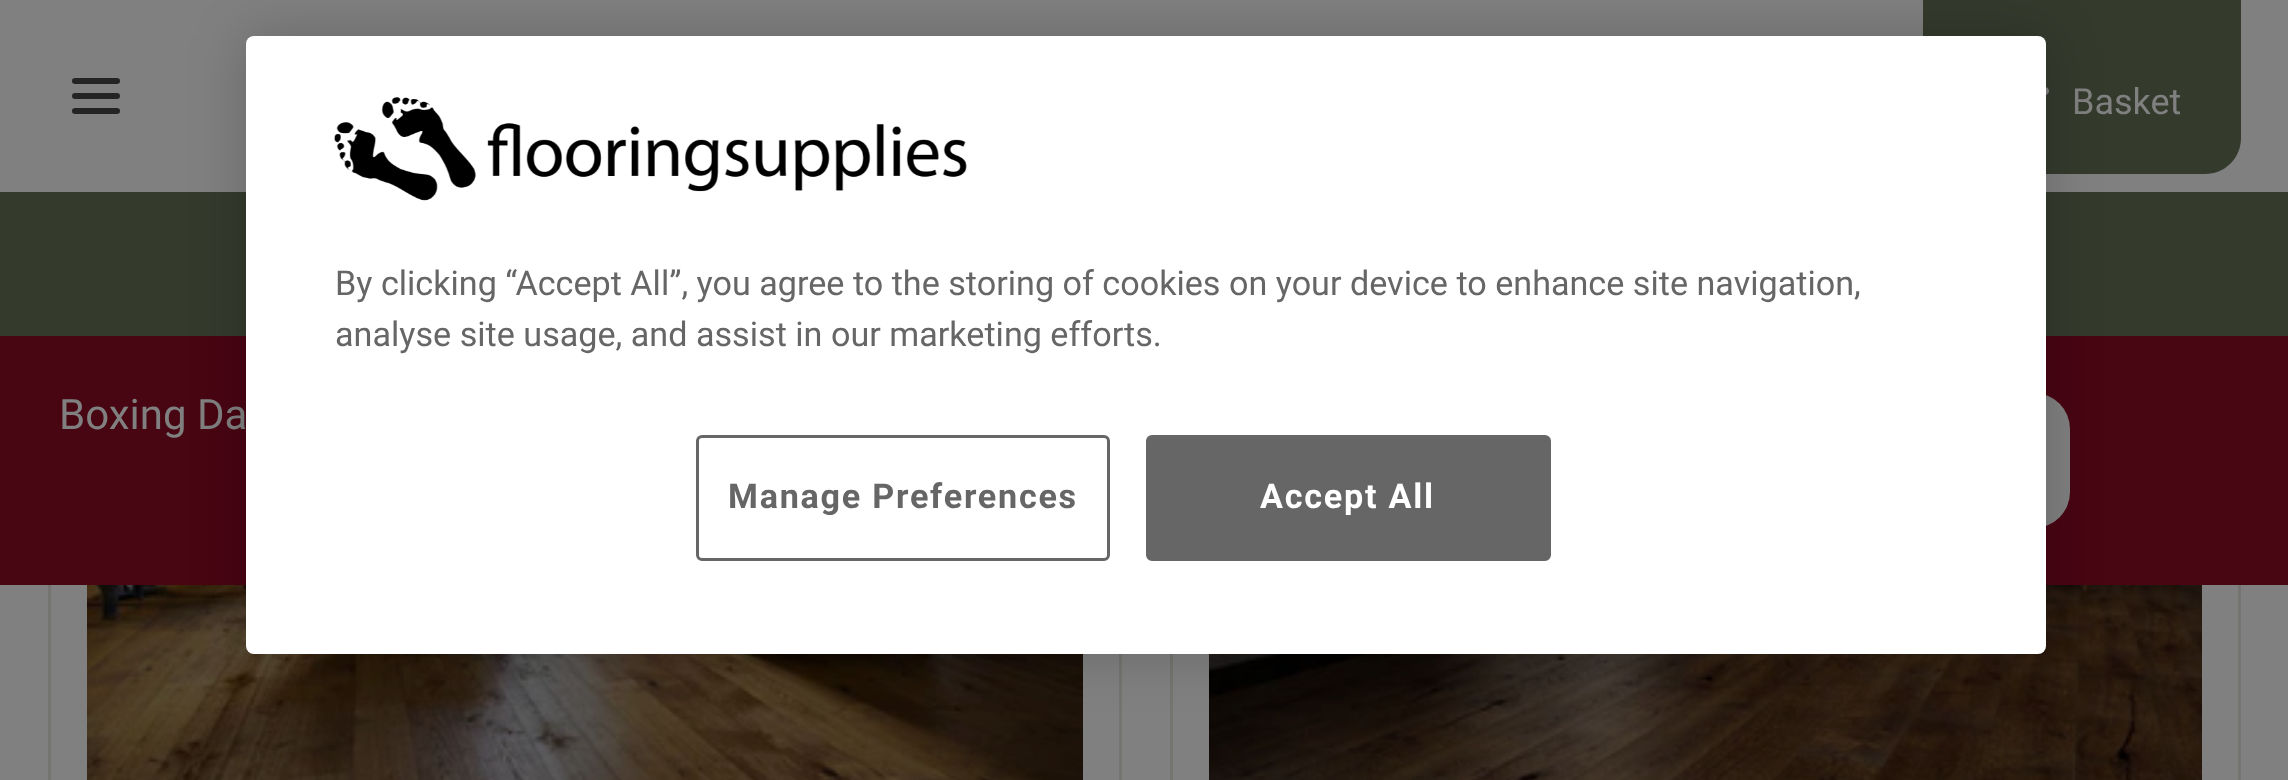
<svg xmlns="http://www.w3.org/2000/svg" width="2288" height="780">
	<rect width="100%" height="100%" fill="#808080" />
	<rect x="49.5" y="160.5" width="1071" height="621" fill="none" stroke="#747571" stroke-width="3" />
	<rect x="1171.5" y="160.5" width="1068" height="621" fill="none" stroke="#747571" stroke-width="3" />
	<rect x="48" y="159" width="2193" height="33" fill="#808080" />
	<rect x="72" y="78" width="48" height="6" rx="3" fill="#242424" />
	<rect x="72" y="93" width="48" height="6" rx="3" fill="#242424" />
	<rect x="72" y="108" width="48" height="6" rx="3" fill="#242424" />
	<path d="M1923-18H2241V138C2241 158 2225 174 2205 174H1959C1939 174 1923 158 1923 138Z" fill="#343B2D" />
	<image x="2046" y="87" width="3" height="8" href="assets/img1.png" />
	<text x="2072" y="114" font-family="Roboto" font-size="36" fill="#808080">Basket</text>
	<rect x="0" y="192" width="2288" height="144" fill="#343B2D" />
	<rect x="0" y="336" width="2288" height="249" fill="#480512" />
	<text x="59" y="429" font-family="Roboto" font-size="42" fill="#808080">Boxing Da</text>
	<rect x="1341" y="393" width="729" height="135" rx="36" fill="#808080" />
	<image x="87" y="585" width="996" height="195" href="assets/img2.png" />
	<image x="1209" y="585" width="993" height="195" href="assets/img3.png" />
	<rect x="246" y="36" width="1800" height="618" rx="8" fill="#000000" fill-opacity="0.2" filter="blur(27px)" />
	<rect x="246" y="36" width="1800" height="618" rx="8" fill="#FFFFFF" />
	<image x="334" y="97" width="633" height="104" href="assets/img4.png" />
	<g font-family="Roboto" font-size="34.15" fill="#666666">
		<text x="335" y="295">By clicking “Accept All”, you agree to the storing of cookies on your device to enhance site navigation,</text>
		<text x="335" y="346">analyse site usage, and assist in our marketing efforts.</text>
	</g>
	<rect x="697.5" y="436.5" width="411" height="123" rx="4.5" fill="none" stroke="#666666" stroke-width="3" />
	<text x="728" y="508" font-family="Roboto" font-size="34.15" font-weight="700" letter-spacing="1.75" fill="#666666">Manage Preferences</text>
	<rect x="1147.5" y="436.5" width="402" height="123" rx="4.5" fill="#666666" stroke="#666666" stroke-width="3" />
	<text x="1260" y="508" font-family="Roboto" font-size="34.15" font-weight="700" letter-spacing="1.75" fill="#FFFFFF">Accept All</text>
</svg>
